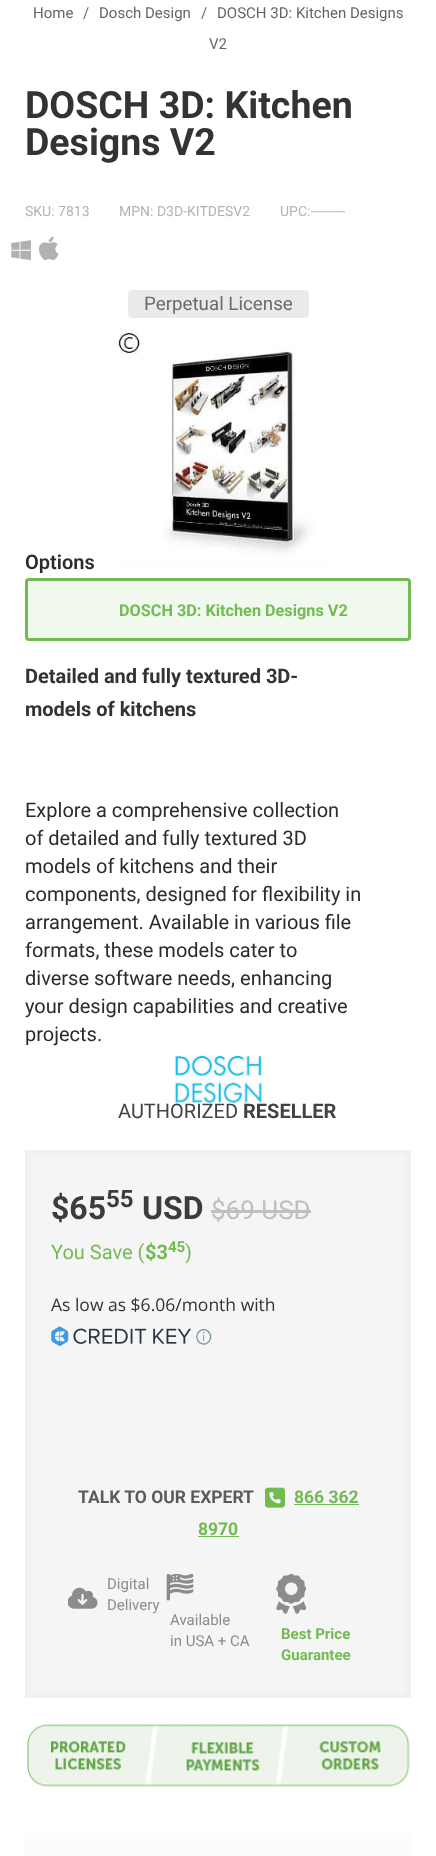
<svg xmlns="http://www.w3.org/2000/svg" width="436" height="1856">
	<defs>
		<linearGradient id="g1" gradientUnits="userSpaceOnUse" x1="218" y1="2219" x2="218" y2="1794"><stop offset="0" stop-color="#E4E4E4" /><stop offset="1" stop-color="#FFFFFF" /></linearGradient>
	</defs>
	<rect width="100%" height="100%" fill="#FFFFFF" />
	<g font-family="Roboto" font-size="15" fill="#656565">
		<text x="33" y="18">Home</text>
		<text x="83" y="18">/</text>
		<text x="99" y="18">Dosch Design</text>
		<text x="201" y="18">/</text>
		<text x="217" y="18">DOSCH 3D: Kitchen Designs</text>
		<text x="209" y="49">V2</text>
	</g>
	<g font-family="Roboto" font-size="37.5" font-weight="700" fill="#333333">
		<text x="25" y="118">DOSCH 3D: Kitchen</text>
		<text x="25" y="155">Designs V2</text>
	</g>
	<g font-family="Roboto" font-size="14" fill="#B3B3B3">
		<text x="25" y="216">SKU: 7813</text>
		<text x="119" y="216">MPN: D3D-KITDESV2</text>
		<text x="280" y="216">UPC:---------</text>
	</g>
	<image x="11" y="240" width="20" height="21" href="assets/img1.png" />
	<image x="39" y="236" width="20" height="24" href="assets/img2.png" />
	<rect x="128" y="290" width="181" height="28" rx="4" fill="#EAEAEA" />
	<text x="144" y="310" font-family="Roboto" font-size="18.75" fill="#6B6B6B">Perpetual License</text>
	<rect x="114" y="563" width="217" height="1" fill="#FAFAFA" />
	<image x="114" y="328" width="217" height="235" href="assets/img3.png" />
	<text x="25" y="569" font-family="Roboto" font-size="20" font-weight="600" fill="#2B2B2B">Options</text>
	<rect x="26.5" y="579.5" width="383" height="60" rx="2.5" fill="#F1F8EE" stroke="#72BB52" stroke-width="3" />
	<text x="119" y="616" font-family="Roboto" font-size="16.25" font-weight="700" fill="#72BB52">DOSCH 3D: Kitchen Designs V2</text>
	<g font-family="Roboto" font-size="20" font-weight="700" fill="#333333">
		<text x="25" y="683">Detailed and fully textured 3D-</text>
		<text x="25" y="716">models of kitchens</text>
	</g>
	<g font-family="Roboto" font-size="20" fill="#2B2B2B">
		<text x="25" y="817">Explore a comprehensive collection</text>
		<text x="25" y="845">of detailed and fully textured 3D</text>
		<text x="25" y="873">models of kitchens and their</text>
		<text x="25" y="901">components, designed for flexibility in</text>
		<text x="25" y="929">arrangement. Available in various file</text>
		<text x="25" y="957">formats, these models cater to</text>
		<text x="25" y="985">diverse software needs, enhancing</text>
		<text x="25" y="1013">your design capabilities and creative</text>
		<text x="25" y="1041">projects.</text>
	</g>
	<image x="174" y="1055" width="90" height="49" href="assets/img4.png" />
	<text x="118" y="1118" font-family="Roboto" font-size="20" fill="#424242">AUTHORIZED</text>
	<text x="243" y="1118" font-family="Roboto" font-size="20" font-weight="700" fill="#424242">RESELLER</text>
	<rect x="28" y="1153" width="380" height="542" fill="#F5F5F5" stroke="#F1F1F1" stroke-width="6" />
	<text x="51" y="1219" font-family="Roboto" font-size="32" font-weight="700" fill="#3C3B3E">$65</text>
	<text x="106" y="1207" font-family="Roboto" font-size="24" font-weight="700" fill="#3C3B3E">55</text>
	<text x="142" y="1219" font-family="Roboto" font-size="32" font-weight="700" fill="#3C3B3E">USD</text>
	<text x="211" y="1219" font-family="Roboto" font-size="26" fill="#BFBFBF">$69 USD</text>
	<rect x="211" y="1210" width="100" height="3" fill="#BFBFBF" />
	<text x="51" y="1259" font-family="Roboto" font-size="20" fill="#72BB52">You Save (</text>
	<text x="145" y="1259" font-family="Roboto" font-size="20" font-weight="700" fill="#72BB52">$3</text>
	<text x="168" y="1252" font-family="Roboto" font-size="15" font-weight="700" fill="#72BB52">45</text>
	<text x="185" y="1259" font-family="Roboto" font-size="20" fill="#72BB52">)</text>
	<text x="51" y="1311" font-family="Open Sans" font-size="17.5" fill="#333333">As low as $6.06/month with</text>
	<image x="51" y="1326" width="140" height="20" href="assets/img5.png" />
	<image x="196" y="1329" width="16" height="16" href="assets/img6.png" />
	<text x="78" y="1503" font-family="Roboto" font-size="17.5" font-weight="700" fill="#5B5B5B">TALK TO OUR EXPERT</text>
	<image x="265" y="1487" width="20" height="21" href="assets/img7.png" />
	<text x="294" y="1503" font-family="Roboto" font-size="17.5" font-weight="700" fill="#72BB52">866 362</text>
	<rect x="294" y="1504" width="65" height="1" fill="#72BB52" />
	<text x="198" y="1535" font-family="Roboto" font-size="17.5" font-weight="700" fill="#72BB52">8970</text>
	<rect x="198" y="1536" width="41" height="1" fill="#72BB52" />
	<image x="68" y="1587" width="30" height="22" href="assets/img8.png" />
	<g font-family="Roboto" font-size="15" fill="#8C8C8C">
		<text x="107" y="1589">Digital</text>
		<text x="107" y="1610">Delivery</text>
	</g>
	<image x="166" y="1574" width="28" height="27" href="assets/img9.png" />
	<g font-family="Roboto" font-size="15" fill="#8C8C8C">
		<text x="170" y="1625">Available</text>
		<text x="170" y="1646">in USA + CA</text>
	</g>
	<image x="276" y="1574" width="30" height="40" href="assets/img10.png" />
	<g font-family="Roboto" font-size="15" font-weight="700" fill="#72BB52">
		<text x="281" y="1639">Best Price</text>
		<text x="281" y="1660">Guarantee</text>
	</g>
	<image x="27" y="1724" width="383" height="63" href="assets/img11.png" />
	<rect x="25" y="1833" width="386" height="23" fill="url(#g1)" />
</svg>
